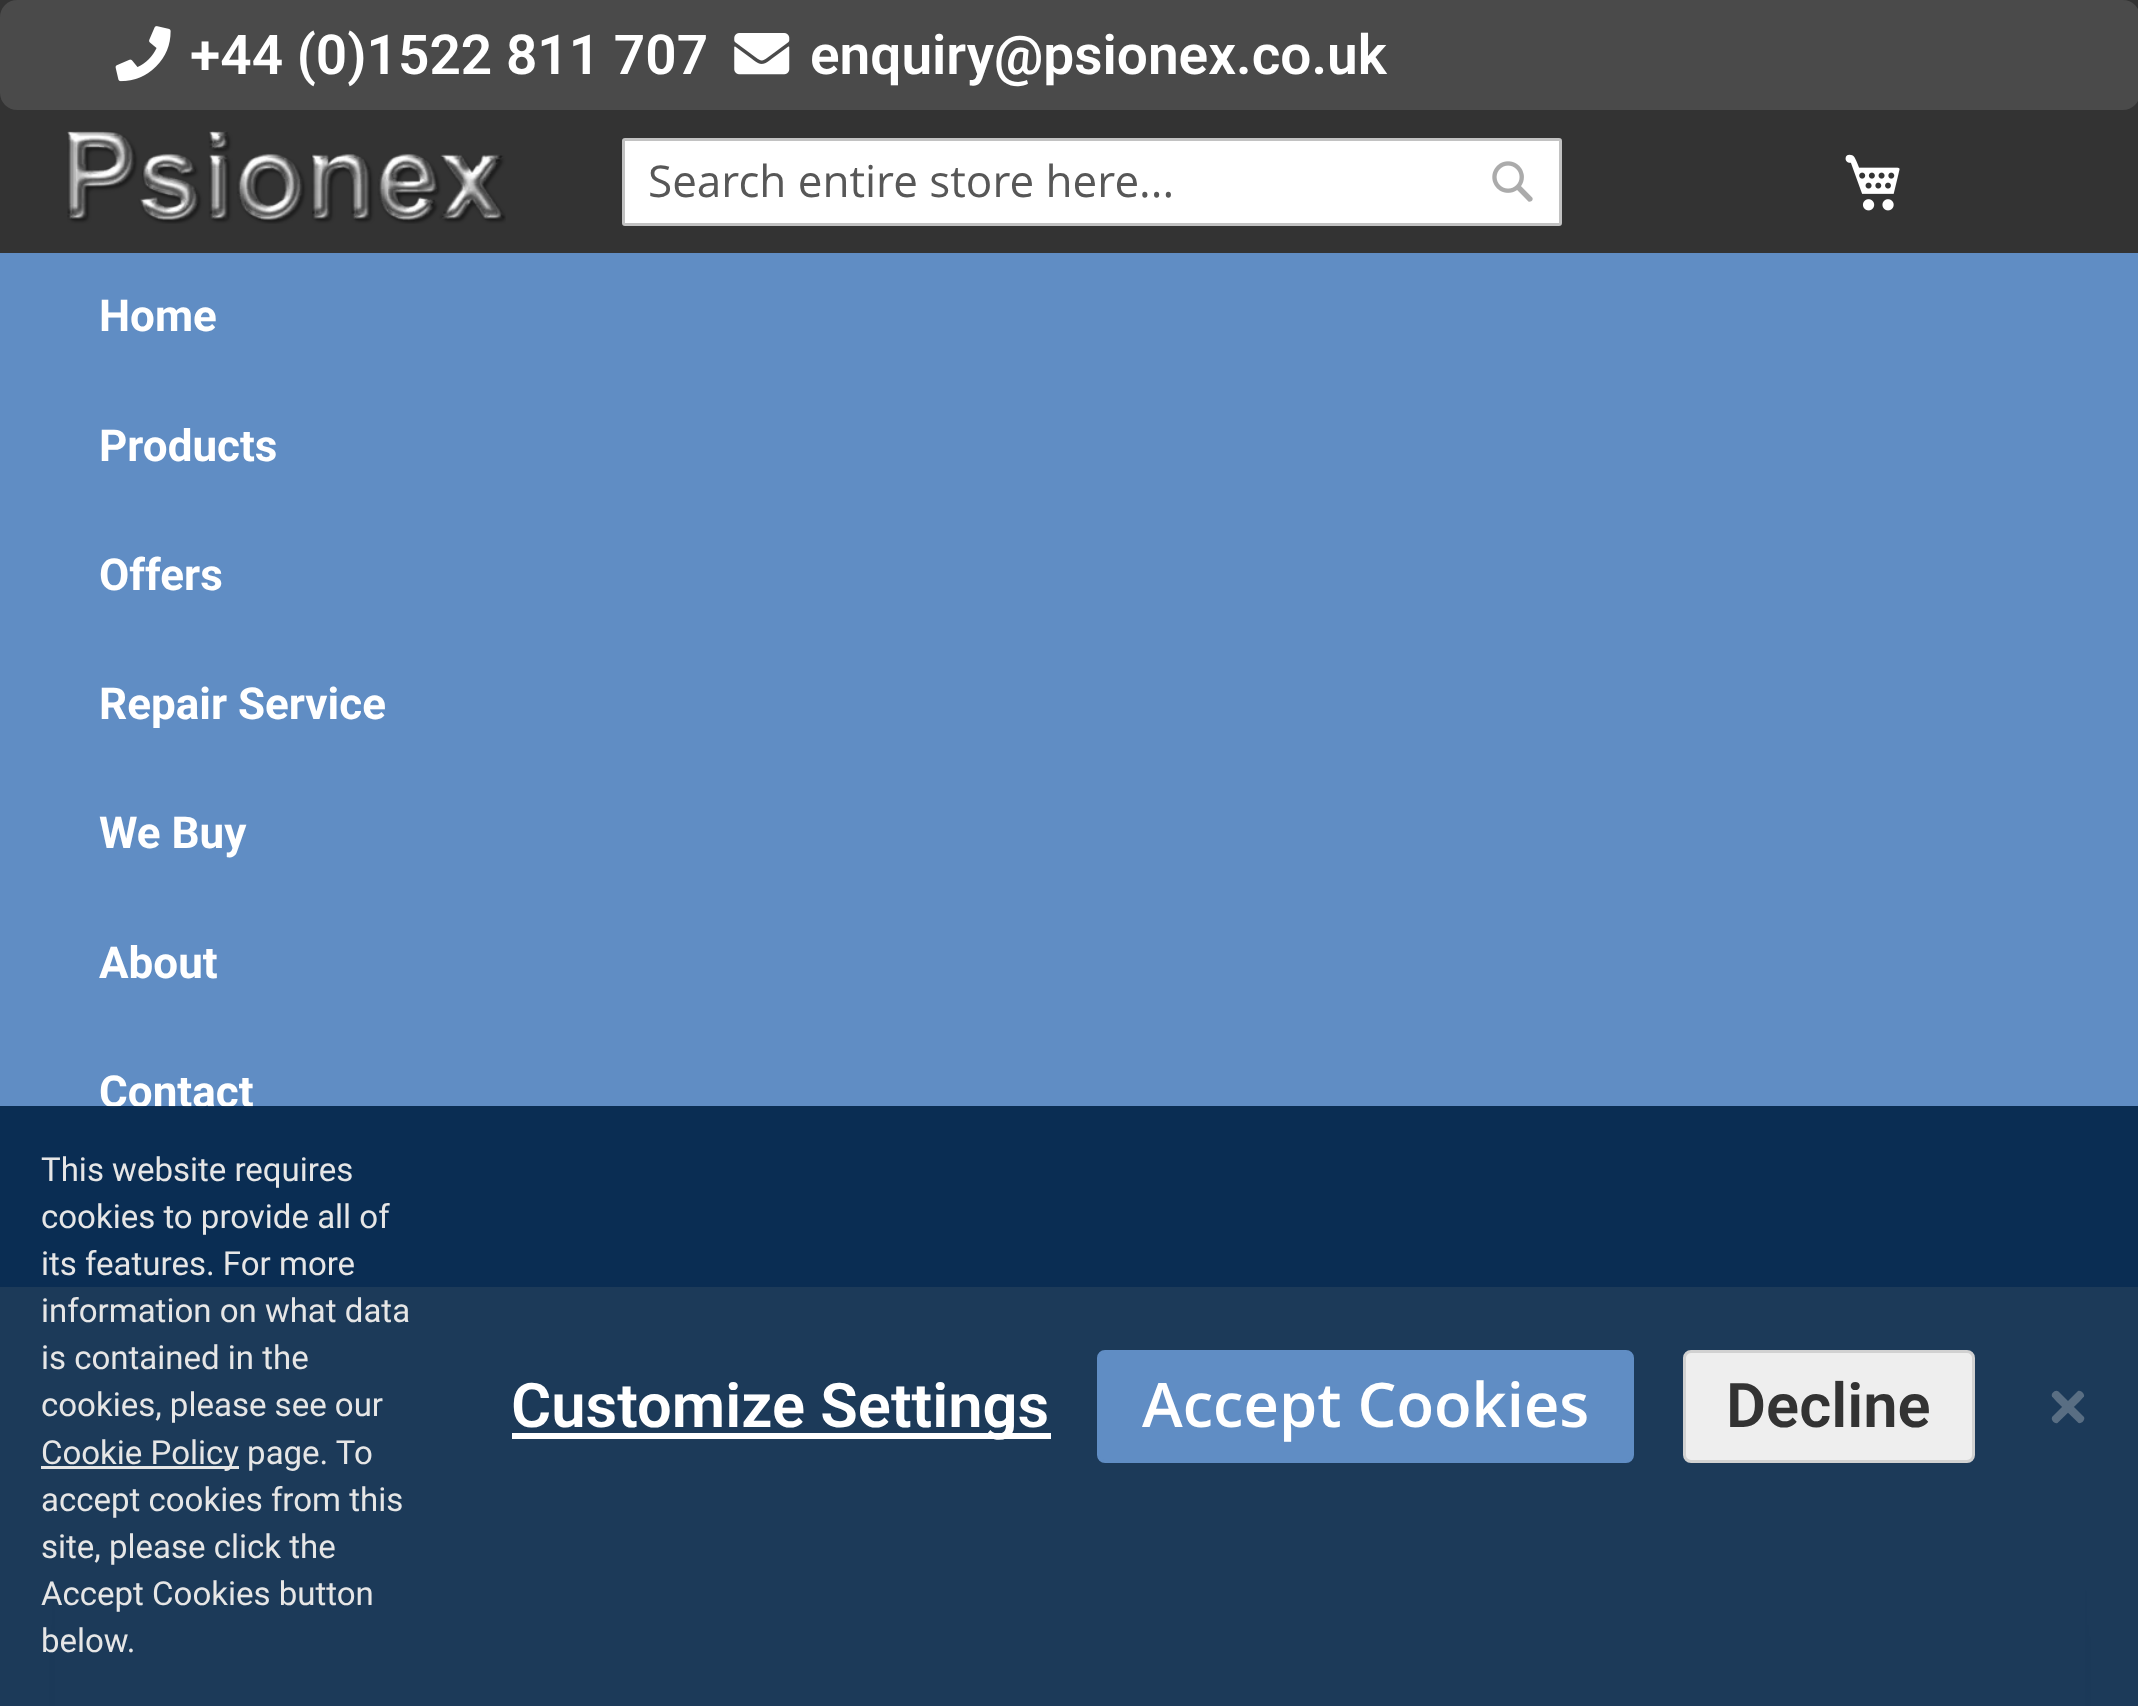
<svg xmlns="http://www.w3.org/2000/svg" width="2138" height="1706">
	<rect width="100%" height="100%" fill="#333333" />
	<rect x="0" y="0" width="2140" height="110" rx="17" fill="#4A4A4A" />
	<image x="115" y="26" width="56" height="56" href="assets/img1.png" />
	<text x="190" y="74" font-family="Roboto" font-size="55" font-weight="600" fill="#FFFFFF">+44 (0)1522 811 707</text>
	<image x="734" y="33" width="56" height="42" href="assets/img2.png" />
	<text x="810" y="74" font-family="Roboto" font-size="55" font-weight="600" fill="#FFFFFF">enquiry@psionex.co.uk</text>
	<image x="67" y="131" width="439" height="93" href="assets/img3.png" />
	<rect x="623.5" y="139.5" width="937" height="85" rx="1.5" fill="#FFFFFF" stroke="#C2C2C2" stroke-width="3" />
	<text x="648" y="197" font-family="Open Sans" font-size="44" fill="#575757">Search entire store here...</text>
	<image x="1492" y="161" width="41" height="41" href="assets/img4.png" />
	<image x="1845" y="154" width="55" height="57" href="assets/img5.png" />
	<rect x="0" y="253" width="2138" height="1034" fill="#608DC4" />
	<g font-family="Roboto" font-size="44" font-weight="700" fill="#FFFFFF">
		<text x="99" y="331">Home</text>
		<text x="99" y="461">Products</text>
		<text x="99" y="590">Offers</text>
		<text x="99" y="719">Repair Service</text>
		<text x="99" y="848">We Buy</text>
		<text x="99" y="978">About</text>
		<text x="99" y="1107">Contact</text>
	</g>
	<rect x="0" y="1287" width="2138" height="419" fill="#FFFFFF" />
	<rect x="53.5" y="1574.5" width="2032" height="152" rx="17.5" fill="none" stroke="#FAFAFA" stroke-width="3" />
	<rect x="61" y="1603" width="2018" height="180" rx="11" fill="#0A0A0A" fill-opacity="0.1" filter="blur(22px)" />
	<rect x="55" y="1576" width="2030" height="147" rx="17" fill="#FFFFFF" />
	<rect x="0" y="1106" width="2138" height="600" fill="#002244" fill-opacity="0.89" />
	<g font-family="Roboto" font-size="33" fill="#E6E6E6">
		<text x="41" y="1181">This website requires</text>
		<text x="41" y="1228">cookies to provide all of</text>
		<text x="41" y="1275">its features. For more</text>
		<text x="41" y="1322">information on what data</text>
		<text x="41" y="1369">is contained in the</text>
		<text x="41" y="1416">cookies, please see our</text>
	</g>
	<rect x="41" y="1466" width="198" height="3" fill="#E6E6E6" />
	<g font-family="Roboto" font-size="33" fill="#E6E6E6">
		<text x="41" y="1464">Cookie Policy page. To</text>
		<text x="41" y="1511">accept cookies from this</text>
		<text x="41" y="1558">site, please click the</text>
		<text x="41" y="1605">Accept Cookies button</text>
		<text x="41" y="1652">below.</text>
	</g>
	<rect x="512" y="1433" width="539" height="6" fill="#FFFFFF" />
	<text x="511" y="1427" font-family="Roboto" font-size="61.5" font-weight="600" fill="#FFFFFF">Customize Settings</text>
	<rect x="1098.5" y="1351.5" width="534" height="110" rx="6.5" fill="#608DC4" stroke="#608DC4" stroke-width="3" />
	<text x="1142" y="1427" font-family="Open Sans" font-size="61.5" font-weight="600" fill="#FFFFFF">Accept Cookies</text>
	<rect x="1684.5" y="1351.5" width="289" height="110" rx="6.5" fill="#EEEEEE" stroke="#D1D1D1" stroke-width="3" />
	<text x="1726" y="1427" font-family="Roboto" font-size="61.5" font-weight="600" fill="#333333">Decline</text>
	<path d="M2058.5 1391.5L2084 1417C2085.5 1420 2081.5 1424 2078.5 1423L2056.5 1401.5L2052 1396.5C2050.5 1393.5 2055.5 1389 2058.5 1391.5Z" fill="#596E83" />
	<path d="M2052.5 1416.5L2078 1391C2080.5 1389.5 2085 1394 2084 1396.5L2079.5 1401.5L2057.5 1423C2054.5 1424.5 2050 1419.5 2052.5 1416.5Z" fill="#596E83" />
</svg>
